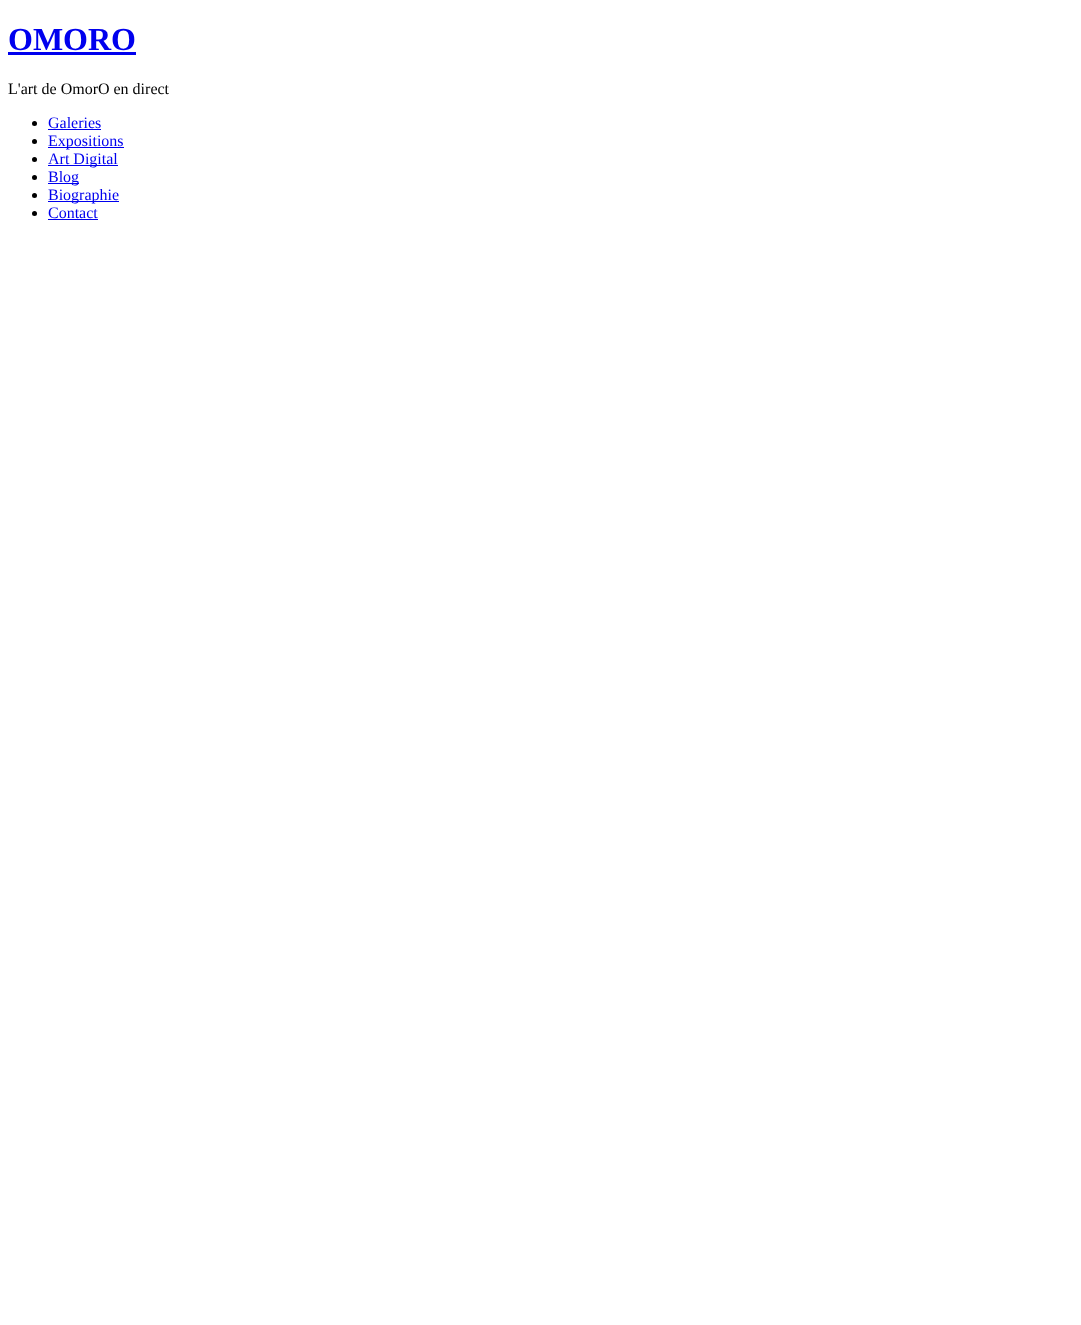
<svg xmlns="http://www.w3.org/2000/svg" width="1081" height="1325">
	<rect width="100%" height="100%" fill="#FFFFFF" />
	<text x="8" y="50" font-family="Liberation Serif" font-size="32" font-weight="700" fill="#0000EE">OMORO</text>
	<rect x="8" y="52" width="128" height="3" fill="#0000EE" />
	<text x="8" y="94" font-family="Liberation Serif" font-size="16" fill="#000000">L'art de OmorO en direct</text>
	<circle cx="34.5" cy="123.5" r="2.5" fill="#000000" />
	<text x="48" y="128" font-family="Liberation Serif" font-size="16" fill="#0000EE">Galeries</text>
	<rect x="48" y="129" width="53" height="1" fill="#0000EE" />
	<circle cx="34.5" cy="141.5" r="2.5" fill="#000000" />
	<rect x="48" y="147" width="76" height="1" fill="#0000EE" />
	<text x="48" y="146" font-family="Liberation Serif" font-size="16" fill="#0000EE">Expositions</text>
	<circle cx="34.5" cy="159.5" r="2.5" fill="#000000" />
	<rect x="48" y="165" width="70" height="1" fill="#0000EE" />
	<text x="48" y="164" font-family="Liberation Serif" font-size="16" fill="#0000EE">Art Digital</text>
	<circle cx="34.5" cy="177.5" r="2.5" fill="#000000" />
	<rect x="48" y="183" width="31" height="1" fill="#0000EE" />
	<text x="48" y="182" font-family="Liberation Serif" font-size="16" fill="#0000EE">Blog</text>
	<circle cx="34.5" cy="195.5" r="2.5" fill="#000000" />
	<rect x="48" y="201" width="71" height="1" fill="#0000EE" />
	<text x="48" y="200" font-family="Liberation Serif" font-size="16" fill="#0000EE">Biographie</text>
	<circle cx="34.5" cy="213.5" r="2.5" fill="#000000" />
	<text x="48" y="218" font-family="Liberation Serif" font-size="16" fill="#0000EE">Contact</text>
	<rect x="48" y="219" width="50" height="1" fill="#0000EE" />
</svg>
